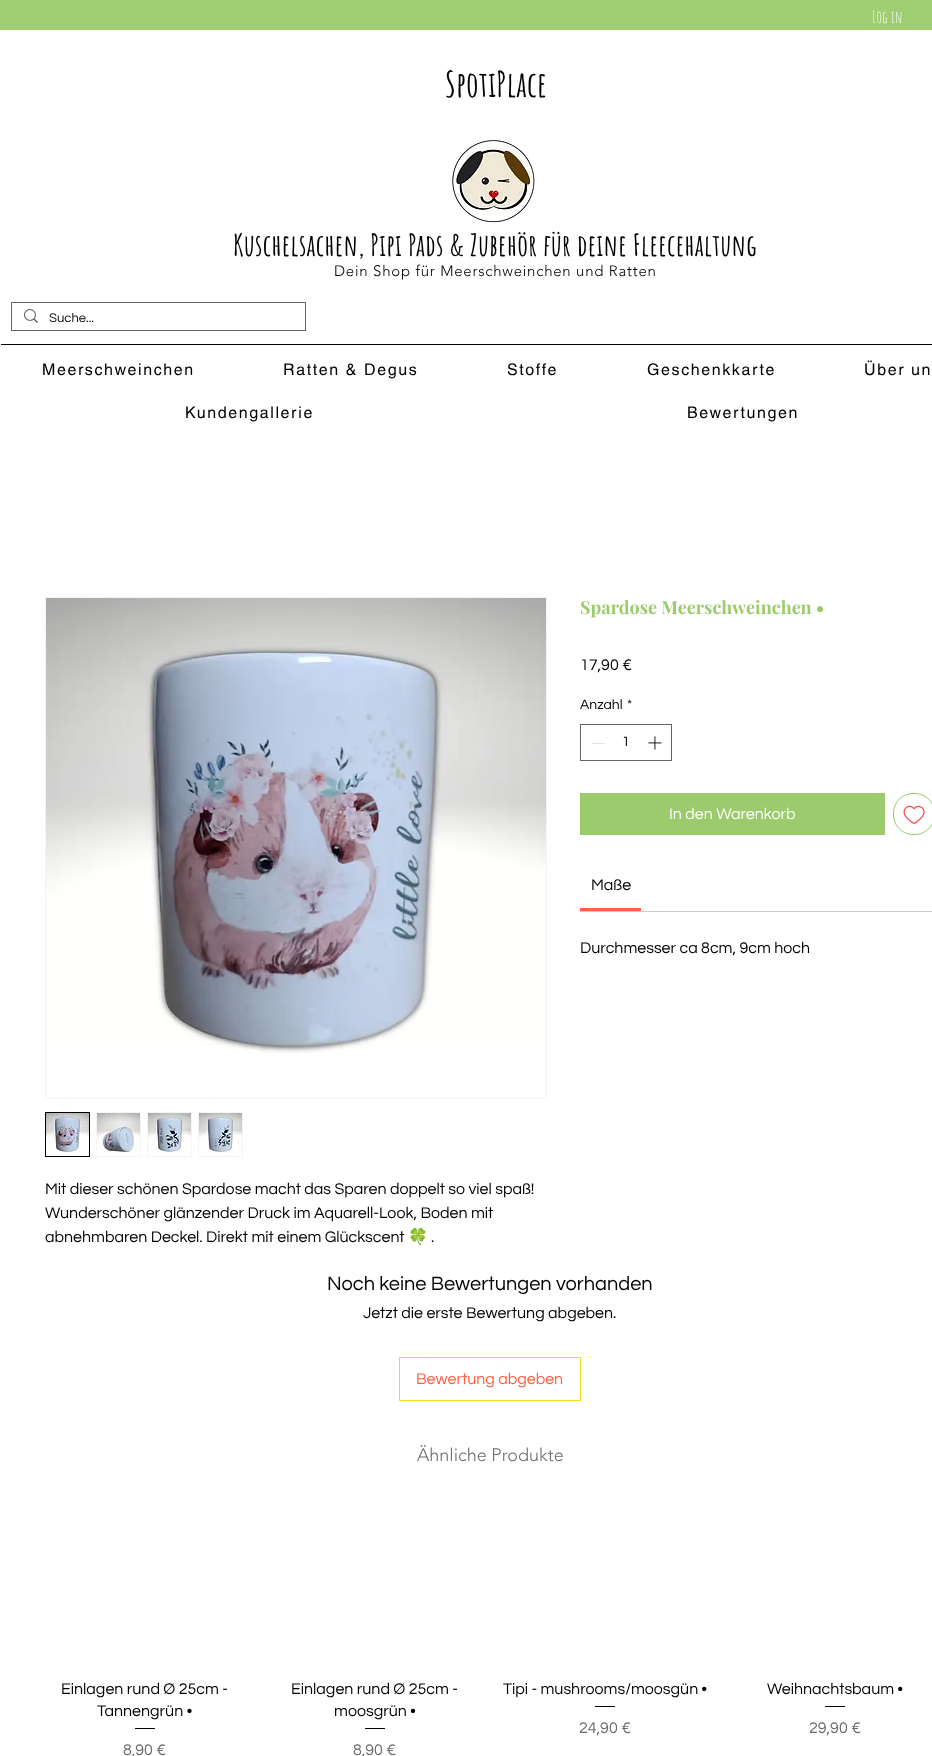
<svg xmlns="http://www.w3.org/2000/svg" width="932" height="1756">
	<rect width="100%" height="100%" fill="#FFFFFF" />
	<rect x="0" y="0" width="932" height="30" fill="#9FCD72" />
	<text x="872" y="23" font-family="Amatic SC" font-size="17" fill="#FFFFFF">Log in</text>
	<text x="445" y="97" font-family="Amatic SC" font-size="35" font-weight="700" letter-spacing="0.25" fill="#000000">SpotiPlace</text>
	<image x="451" y="139" width="84" height="84" href="assets/img1.png" />
	<text x="233" y="256" font-family="Amatic SC" font-size="30" font-weight="700" letter-spacing="0.3" fill="#000000">Kuschelsachen, Pipi Pads &amp; Zubehör für deine Fleecehaltung</text>
	<text x="334" y="276" font-family="'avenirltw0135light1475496'" font-size="15" font-weight="300" letter-spacing="0.75" fill="#000000">Dein Shop für Meerschweinchen und Ratten</text>
	<rect x="11.5" y="302.5" width="294" height="28" fill="none" stroke="#666666" />
	<image x="24" y="309" width="14" height="14" href="assets/img2.png" />
	<text x="49" y="322" font-family="Questrial" font-size="13" fill="#000000">Suche...</text>
	<rect x="1" y="344" width="931" height="1" fill="#000000" />
	<g font-family="helvetica" font-size="16" letter-spacing="1.6" fill="#000000">
		<text x="42" y="375">Meerschweinchen</text>
		<text x="283" y="375">Ratten &amp; Degus</text>
		<text x="507" y="375">Stoffe</text>
		<text x="647" y="375">Geschenkkarte</text>
		<text x="864" y="375">Über un</text>
		<text x="185" y="418">Kundengallerie</text>
		<text x="687" y="418">Bewertungen</text>
	</g>
	<text x="580" y="614" font-family="Playfair Display" font-size="18" font-weight="700" fill="#9BCB6C">Spardose Meerschweinchen •</text>
	<text x="580" y="670" font-family="Questrial" font-size="16" fill="#000000">17,90 €</text>
	<g font-family="Questrial" font-size="14" fill="#000000">
		<text x="580" y="709">Anzahl</text>
		<text x="627" y="709">*</text>
	</g>
	<rect x="580.5" y="724.5" width="91" height="36" fill="none" stroke="#666666" />
	<rect x="592" y="743" width="13" height="1" fill="#E3E3E3" />
	<text x="622" y="746" font-family="Questrial" font-size="14" fill="#000000">1</text>
	<image x="648" y="736" width="14" height="14" href="assets/img3.png" />
	<rect x="580" y="793" width="305" height="42" fill="#9BCB6C" />
	<text x="669" y="819" font-family="Questrial" font-size="16" fill="#FFFFFF">In den Warenkorb</text>
	<rect x="893.5" y="793.5" width="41" height="41" rx="19.5" fill="none" stroke="#9BCB6C" />
	<image x="903" y="805" width="22" height="19" href="assets/img4.png" />
	<rect x="580" y="911" width="352" height="1" fill="#CCCCCC" />
	<rect x="580" y="908" width="61" height="3" fill="#FF5F42" />
	<g font-family="Questrial" font-size="16" fill="#000000">
		<text x="591" y="890">Maße</text>
		<text x="580" y="953">Durchmesser ca 8cm, 9cm hoch</text>
	</g>
	<rect x="45.5" y="597.5" width="501" height="501" fill="none" stroke="#F5F5F5" />
	<image x="46" y="598" width="500" height="456" href="assets/img5.png" />
	<rect x="45.5" y="1112.5" width="44" height="44" fill="none" stroke="#000000" />
	<image x="46" y="1113" width="43" height="41" href="assets/img6.png" />
	<rect x="96.5" y="1112.5" width="44" height="44" fill="none" stroke="#F5F5F5" />
	<image x="97" y="1113" width="43" height="42" href="assets/img7.png" />
	<rect x="147.5" y="1112.5" width="44" height="44" fill="none" stroke="#F5F5F5" />
	<image x="148" y="1113" width="43" height="40" href="assets/img8.png" />
	<rect x="198.5" y="1112.5" width="44" height="44" fill="none" stroke="#F5F5F5" />
	<image x="199" y="1113" width="43" height="42" href="assets/img9.png" />
	<g font-family="Questrial" font-size="16" fill="#000000">
		<text x="45" y="1194">Mit dieser schönen Spardose macht das Sparen doppelt so viel spaß!</text>
		<text x="45" y="1218">Wunderschöner glänzender Druck im Aquarell-Look, Boden mit</text>
		<text x="45" y="1242">abnehmbaren Deckel. Direkt mit einem Glückscent</text>
	</g>
	<text x="408" y="1242" font-family="Noto Color Emoji" font-size="16" fill="#000000">🍀</text>
	<text x="431" y="1242" font-family="Questrial" font-size="16" fill="#000000">.</text>
	<text x="327" y="1290" font-family="Questrial" font-size="20" fill="#000000">Noch keine Bewertungen vorhanden</text>
	<text x="363" y="1318" font-family="Questrial" font-size="16" fill="#000000">Jetzt die erste Bewertung abgeben.</text>
	<rect x="399.5" y="1357.5" width="181" height="43" fill="none" stroke="#F7DB1B" />
	<text x="416" y="1384" font-family="Questrial" font-size="16" fill="#FF5F42">Bewertung abgeben</text>
	<text x="417" y="1461" font-family="'avenirltw0135light1475496'" font-size="18" font-weight="300" fill="#6B6B6A">Ähnliche Produkte</text>
	<g font-family="Questrial" font-size="16" fill="#000000">
		<text x="61" y="1694">Einlagen rund Ø 25cm -</text>
		<text x="97" y="1716">Tannengrün •</text>
	</g>
	<rect x="135" y="1728" width="20" height="1" fill="#000000" />
	<text x="123" y="1755" font-family="Questrial" font-size="16" fill="#6B6B6A">8,90 €</text>
	<g font-family="Questrial" font-size="16" fill="#000000">
		<text x="291" y="1694">Einlagen rund Ø 25cm -</text>
		<text x="334" y="1716">moosgrün •</text>
	</g>
	<rect x="365" y="1728" width="20" height="1" fill="#000000" />
	<text x="353" y="1755" font-family="Questrial" font-size="16" fill="#6B6B6A">8,90 €</text>
	<text x="503" y="1694" font-family="Questrial" font-size="16" fill="#000000">Tipi - mushrooms/moosgün •</text>
	<rect x="595" y="1706" width="20" height="1" fill="#000000" />
	<text x="579" y="1733" font-family="Questrial" font-size="16" fill="#6B6B6A">24,90 €</text>
	<text x="767" y="1694" font-family="Questrial" font-size="16" fill="#000000">Weihnachtsbaum •</text>
	<rect x="825" y="1706" width="20" height="1" fill="#000000" />
	<text x="809" y="1733" font-family="Questrial" font-size="16" fill="#6B6B6A">29,90 €</text>
</svg>
